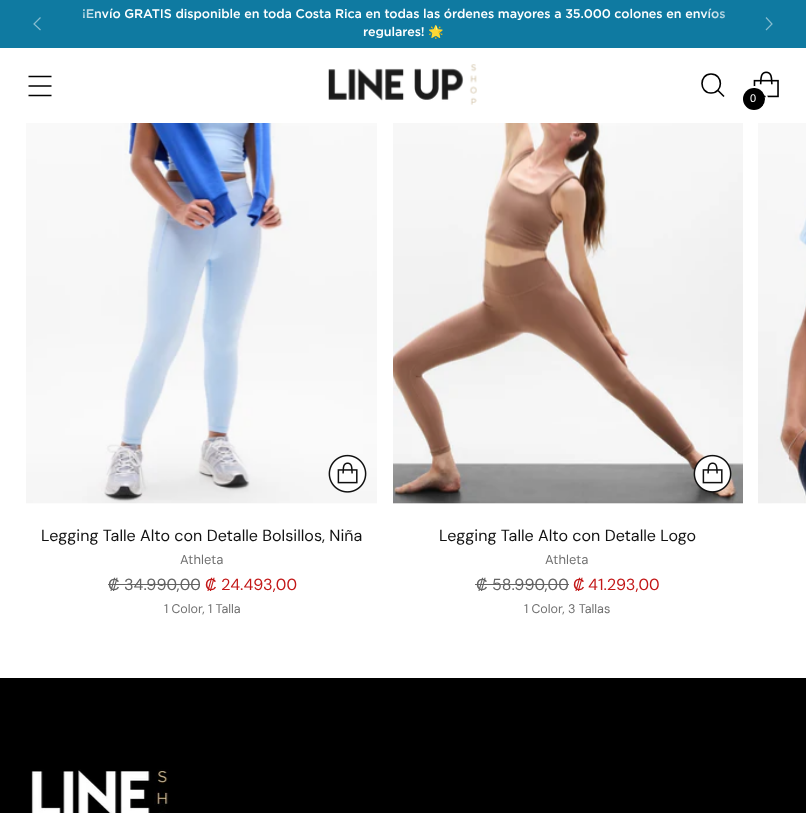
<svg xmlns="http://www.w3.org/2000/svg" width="806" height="813">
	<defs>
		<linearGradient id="g1" gradientUnits="userSpaceOnUse" x1="105" y1="24" x2="0" y2="24"><stop offset="0" stop-color="#0F7AA1" stop-opacity="0" /><stop offset="0.6" stop-color="#0F7AA1" /><stop offset="1" stop-color="#0F7AA1" /></linearGradient>
		<linearGradient id="g2" gradientUnits="userSpaceOnUse" x1="701" y1="24" x2="806" y2="24"><stop offset="0" stop-color="#0F7AA1" stop-opacity="0" /><stop offset="0.6" stop-color="#0F7AA1" /><stop offset="1" stop-color="#0F7AA1" /></linearGradient>
	</defs>
	<rect width="100%" height="100%" fill="#FFFFFF" />
	<rect x="42" y="0" width="722" height="48" fill="#0F7AA1" />
	<text x="82" y="18" font-family="Gotham" font-size="12.52" font-weight="500" letter-spacing="-0.05" fill="#FFFFFF">¡Envío GRATIS disponible en toda Costa Rica en todas las órdenes mayores a 35.000 colones en envíos</text>
	<rect x="0" y="0" width="104" height="48" fill="url(#g1)" />
	<path d="M40.5 17.5L34 24L40.5 30" fill="none" stroke="#87BDD0" stroke-width="1.2" />
	<rect x="702" y="0" width="104" height="48" fill="url(#g2)" />
	<path d="M766 30L772 24L766 17.5" fill="none" stroke="#87BDD0" stroke-width="1.2" />
	<text x="363" y="36" font-family="Gotham" font-size="12.52" font-weight="500" letter-spacing="-0.05" fill="#FFFFFF">regulares!</text>
	<text x="428" y="36" font-family="Noto Color Emoji" font-size="12.52" font-weight="700" letter-spacing="-0.05" fill="#FFFFFF">🌟</text>
	<path d="M28.5 86H51.5M28.5 76.5H51.5M28.5 95.5H51.5" fill="none" stroke="#000000" stroke-width="1.6" />
	<image x="328" y="64" width="149" height="41" href="assets/img1.png" />
	<path d="M711 93C723.5 93 723.5 74 711 74C699 74 699 93 711 93Z" fill="none" stroke="#000000" stroke-width="1.6" stroke-linecap="round" />
	<path d="M718 90.5L724 96.5" fill="none" stroke="#000000" stroke-width="1.6" />
	<image x="753" y="71" width="26" height="27" href="assets/img2.png" />
	<circle cx="754.5" cy="99.5" r="12.5" fill="none" stroke="#FFFFFF" stroke-width="2" />
	<circle cx="754" cy="99" r="11" fill="#000000" />
	<text x="750" y="102" font-family="Liberation Sans" font-size="11" fill="#FFFFFF">0</text>
	<image x="758" y="123" width="48" height="381" href="assets/img3.png" />
	<image x="26" y="123" width="351" height="381" href="assets/img4.png" />
	<image x="328" y="454" width="39" height="39" href="assets/img5.png" />
	<text x="41" y="541" font-family="DM Sans" font-size="16.1" fill="#111111">Legging Talle Alto con Detalle Bolsillos, Niña</text>
	<text x="180" y="564" font-family="'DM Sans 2'" font-size="13" fill="#707070">Athleta</text>
	<text x="108" y="590" font-family="Liberation Sans" font-size="16.1" fill="#646464">₡</text>
	<rect x="108" y="584" width="92" height="1" fill="#646464" />
	<text x="124" y="590" font-family="'DM Sans 2'" font-size="16.1" fill="#646464">34.990,00</text>
	<text x="205" y="590" font-family="Liberation Sans" font-size="16.1" fill="#C31818">₡</text>
	<text x="221" y="590" font-family="'DM Sans 2'" font-size="16.1" fill="#C31818">24.493,00</text>
	<text x="164" y="613" font-family="'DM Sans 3'" font-size="12.52" letter-spacing="-0.05" fill="#707070">1 Color, 1 Talla</text>
	<image x="393" y="123" width="350" height="381" href="assets/img6.png" />
	<image x="693" y="454" width="39" height="39" href="assets/img7.png" />
	<text x="439" y="541" font-family="DM Sans" font-size="16.1" fill="#111111">Legging Talle Alto con Detalle Logo</text>
	<text x="545" y="564" font-family="'DM Sans 2'" font-size="13" fill="#707070">Athleta</text>
	<text x="476" y="590" font-family="Liberation Sans" font-size="16.1" fill="#646464">₡</text>
	<rect x="475" y="584" width="94" height="1" fill="#646464" />
	<text x="492" y="590" font-family="'DM Sans 2'" font-size="16.1" fill="#646464">58.990,00</text>
	<text x="573" y="590" font-family="Liberation Sans" font-size="16.1" fill="#C31818">₡</text>
	<text x="588" y="590" font-family="'DM Sans 2'" font-size="16.1" fill="#C31818">41.293,00</text>
	<text x="524" y="613" font-family="'DM Sans 3'" font-size="12.52" letter-spacing="-0.05" fill="#707070">1 Color, 3 Tallas</text>
	<rect x="0" y="678" width="806" height="135" fill="#000000" />
	<image x="31" y="769" width="138" height="44" href="assets/img8.png" />
</svg>
